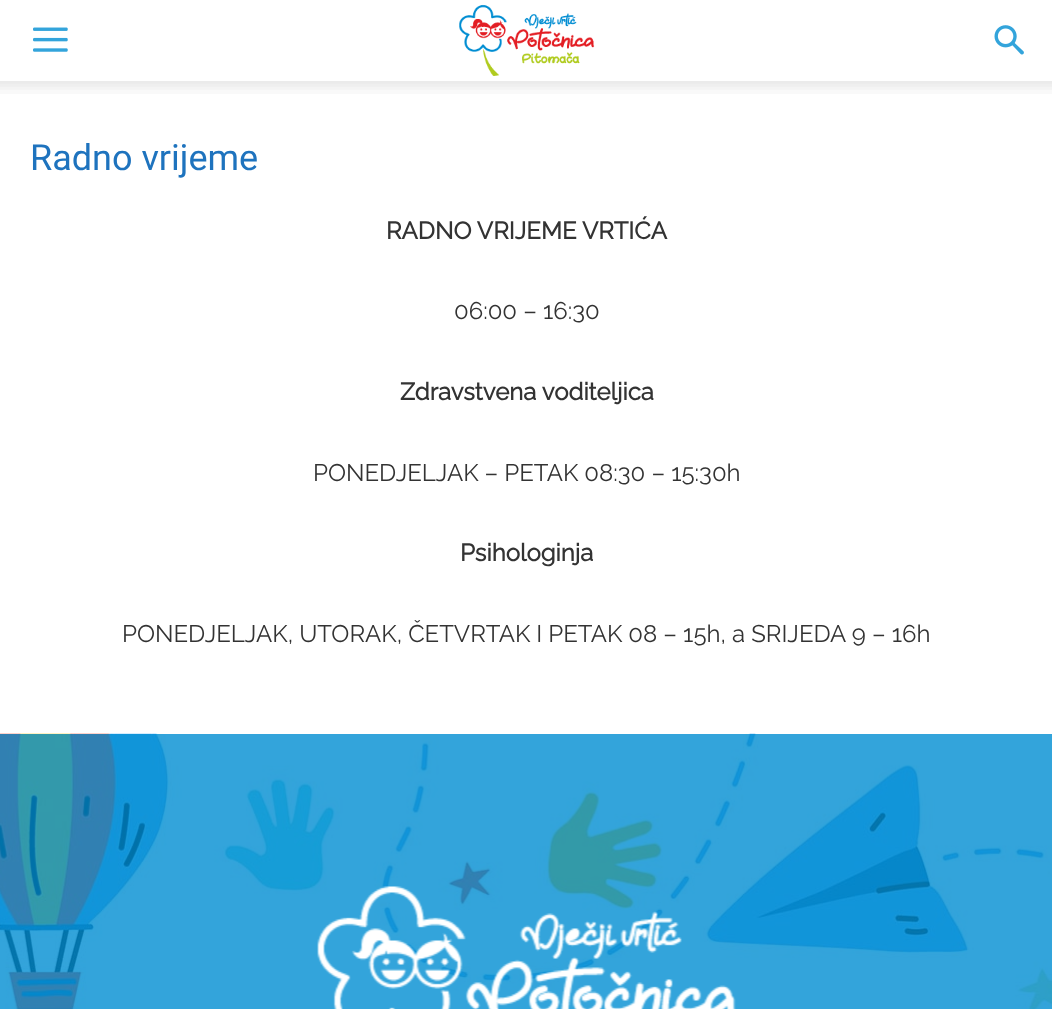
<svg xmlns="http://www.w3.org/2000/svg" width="1052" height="1009">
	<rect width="100%" height="100%" fill="#FFFFFF" />
	<image x="33" y="27" width="35" height="25" href="assets/img1.png" />
	<image x="459" y="4" width="136" height="72" href="assets/img2.png" />
	<image x="994" y="25" width="30" height="30" href="assets/img3.png" />
	<image x="0" y="81" width="1052" height="13" href="assets/img4.png" />
	<text x="30" y="170" font-family="Roboto" font-size="36" fill="#1E73BE">Radno vrijeme</text>
	<text x="386" y="239" font-family="Raleway" font-size="24" font-weight="700" fill="#333333">RADNO VRIJEME VRTIĆA</text>
	<text x="454" y="319" font-family="Raleway" font-size="24" font-weight="100" fill="#333333">06:00 – 16:30</text>
	<text x="400" y="400" font-family="Raleway" font-size="24" font-weight="700" fill="#333333">Zdravstvena voditeljica</text>
	<text x="313" y="481" font-family="Raleway" font-size="24" font-weight="100" fill="#333333">PONEDJELJAK – PETAK 08:30 – 15:30h</text>
	<text x="460" y="561" font-family="Raleway" font-size="24" font-weight="700" fill="#333333">Psihologinja</text>
	<text x="122" y="642" font-family="Raleway" font-size="24" font-weight="100" fill="#333333">PONEDJELJAK, UTORAK, ČETVRTAK I PETAK 08 – 15h, a SRIJEDA 9 – 16h</text>
	<image x="0" y="733" width="1052" height="276" href="assets/img5.png" />
	<image x="317" y="886" width="419" height="123" href="assets/img6.png" />
</svg>
